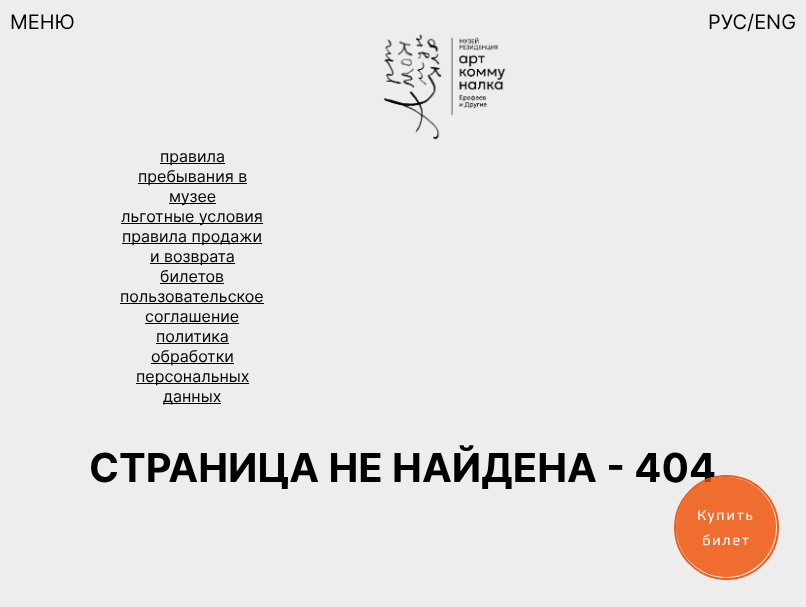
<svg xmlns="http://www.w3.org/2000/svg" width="806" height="607">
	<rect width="100%" height="100%" fill="#EDEDED" />
	<g font-family="Inter" font-size="20" fill="#000000">
		<text x="10" y="29">МЕНЮ</text>
		<text x="708" y="29">РУС/ENG</text>
	</g>
	<image x="383" y="34" width="123" height="106" href="assets/img1.png" />
	<rect x="160" y="163" width="65" height="1" fill="#000000" />
	<text x="160" y="162" font-family="Inter" font-size="16" fill="#000000">правила</text>
	<rect x="138" y="183" width="109" height="1" fill="#000000" />
	<text x="138" y="182" font-family="Inter" font-size="16" fill="#000000">пребывания в</text>
	<rect x="169" y="203" width="47" height="1" fill="#000000" />
	<text x="169" y="202" font-family="Inter" font-size="16" fill="#000000">музее</text>
	<rect x="121" y="223" width="142" height="1" fill="#000000" />
	<text x="121" y="222" font-family="Inter" font-size="16" fill="#000000">льготные условия</text>
	<rect x="122" y="243" width="140" height="1" fill="#000000" />
	<text x="122" y="242" font-family="Inter" font-size="16" fill="#000000">правила продажи</text>
	<rect x="150" y="263" width="85" height="1" fill="#000000" />
	<g font-family="Inter" font-size="16" fill="#000000">
		<text x="150" y="262">и возврата</text>
		<text x="160" y="282">билетов</text>
	</g>
	<rect x="160" y="283" width="64" height="1" fill="#000000" />
	<text x="120" y="302" font-family="Inter" font-size="16" fill="#000000">пользовательское</text>
	<rect x="120" y="303" width="144" height="1" fill="#000000" />
	<text x="145" y="322" font-family="Inter" font-size="16" fill="#000000">соглашение</text>
	<rect x="145" y="323" width="94" height="1" fill="#000000" />
	<text x="156" y="342" font-family="Inter" font-size="16" fill="#000000">политика</text>
	<rect x="156" y="343" width="73" height="1" fill="#000000" />
	<rect x="151" y="363" width="83" height="1" fill="#000000" />
	<text x="151" y="362" font-family="Inter" font-size="16" fill="#000000">обработки</text>
	<rect x="136" y="383" width="113" height="1" fill="#000000" />
	<text x="136" y="382" font-family="Inter" font-size="16" fill="#000000">персональных</text>
	<rect x="163" y="403" width="58" height="1" fill="#000000" />
	<text x="163" y="402" font-family="Inter" font-size="16" fill="#000000">данных</text>
	<text x="89" y="482" font-family="Inter" font-size="40" font-weight="700" fill="#000000">СТРАНИЦА НЕ НАЙДЕНА - 404</text>
	<circle cx="726" cy="527" r="50" fill="#F04C00" fill-opacity="0.8" />
	<circle cx="726.5" cy="527.5" r="51.5" fill="none" stroke="#F04C00" stroke-opacity="0.9" stroke-width="2" />
	<g font-family="Play" font-size="15" letter-spacing="1.5" fill="#FFFFFF">
		<text x="697" y="520">Купить</text>
		<text x="702" y="545">билет</text>
	</g>
</svg>
